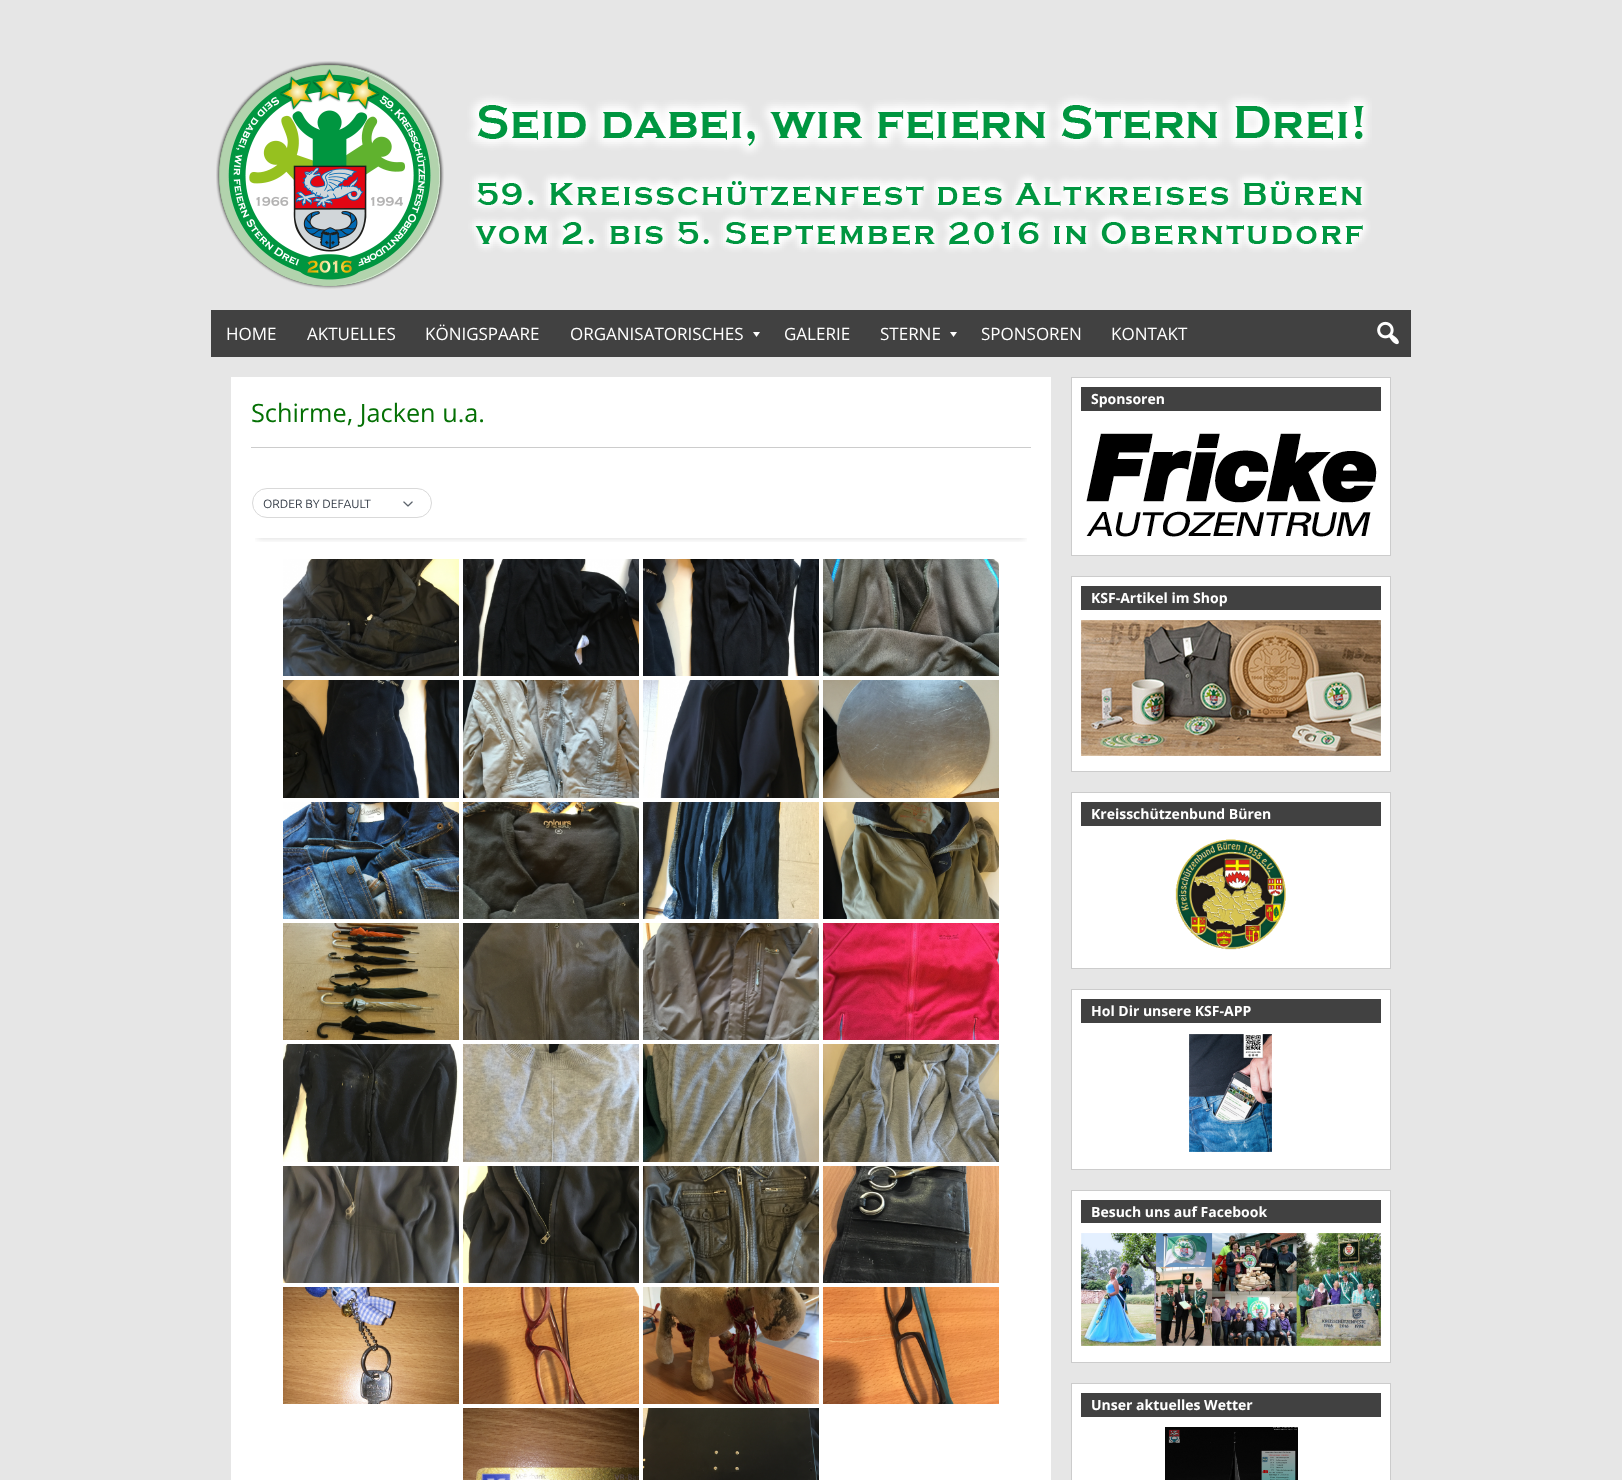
<svg xmlns="http://www.w3.org/2000/svg" width="1622" height="1480">
	<defs>
		<clipPath id="clip1"><rect x="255" y="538" width="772" height="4" /></clipPath>
	</defs>
	<rect width="100%" height="100%" fill="#E6E6E6" />
	<image x="216" y="61" width="1156" height="228" href="assets/img1.png" />
	<rect x="211" y="310" width="1200" height="47" fill="#414141" />
	<g font-family="Open Sans" font-size="17" fill="#FFFFFF">
		<text x="226" y="340">HOME</text>
		<text x="307" y="340">AKTUELLES</text>
		<text x="425" y="340">KÖNIGSPAARE</text>
		<text x="570" y="340">ORGANISATORISCHES</text>
	</g>
	<path d="M760 332L756.5 337L753 332Z" fill="#FFFFFF" />
	<g font-family="Open Sans" font-size="17" fill="#FFFFFF">
		<text x="784" y="340">GALERIE</text>
		<text x="880" y="340">STERNE</text>
	</g>
	<path d="M957 332L953.5 337L950 332Z" fill="#FFFFFF" />
	<g font-family="Open Sans" font-size="17" fill="#FFFFFF">
		<text x="981" y="340">SPONSOREN</text>
		<text x="1111" y="340">KONTAKT</text>
	</g>
	<image x="1377" y="321" width="22" height="24" href="assets/img2.png" />
	<rect x="231" y="377" width="820" height="1103" fill="#FFFFFF" />
	<rect x="251" y="447" width="780" height="1" fill="#CCCCCC" />
	<text x="251" y="422" font-family="Open Sans" font-size="25.25" fill="#047004">Schirme, Jacken u.a.</text>
	<g clip-path="url(#clip1)">
		<rect x="257" y="498" width="768" height="40" fill="#000000" fill-opacity="0.16" filter="blur(3.5px)" />
	</g>
	<rect x="252.5" y="488.5" width="179" height="29" rx="14.5" fill="none" stroke="#D9D9D9" />
	<text x="263" y="508" font-family="Ubuntu" font-size="12" fill="#323A45">ORDER BY DEFAULT</text>
	<image x="403" y="501" width="10" height="6" href="assets/img3.png" />
	<image x="283" y="559" width="176" height="117" href="assets/img4.png" />
	<image x="463" y="559" width="176" height="117" href="assets/img5.png" />
	<image x="643" y="559" width="176" height="117" href="assets/img6.png" />
	<image x="823" y="559" width="176" height="117" href="assets/img7.png" />
	<image x="283" y="680" width="176" height="118" href="assets/img8.png" />
	<image x="463" y="680" width="176" height="118" href="assets/img9.png" />
	<image x="643" y="680" width="176" height="118" href="assets/img10.png" />
	<image x="823" y="680" width="176" height="118" href="assets/img11.png" />
	<image x="283" y="802" width="176" height="117" href="assets/img12.png" />
	<image x="463" y="802" width="176" height="117" href="assets/img13.png" />
	<image x="643" y="802" width="176" height="117" href="assets/img14.png" />
	<image x="823" y="802" width="176" height="117" href="assets/img15.png" />
	<image x="283" y="923" width="176" height="117" href="assets/img16.png" />
	<image x="463" y="923" width="176" height="117" href="assets/img17.png" />
	<image x="643" y="923" width="176" height="117" href="assets/img18.png" />
	<image x="823" y="923" width="176" height="117" href="assets/img19.png" />
	<image x="283" y="1044" width="176" height="118" href="assets/img20.png" />
	<image x="463" y="1044" width="176" height="118" href="assets/img21.png" />
	<image x="643" y="1044" width="176" height="118" href="assets/img22.png" />
	<image x="823" y="1044" width="176" height="118" href="assets/img23.png" />
	<image x="283" y="1166" width="176" height="117" href="assets/img24.png" />
	<image x="463" y="1166" width="176" height="117" href="assets/img25.png" />
	<image x="643" y="1166" width="176" height="117" href="assets/img26.png" />
	<image x="823" y="1166" width="176" height="117" href="assets/img27.png" />
	<image x="283" y="1287" width="176" height="117" href="assets/img28.png" />
	<image x="463" y="1287" width="176" height="117" href="assets/img29.png" />
	<image x="643" y="1287" width="176" height="117" href="assets/img30.png" />
	<image x="823" y="1287" width="176" height="117" href="assets/img31.png" />
	<image x="463" y="1408" width="176" height="72" href="assets/img32.png" />
	<image x="643" y="1408" width="176" height="72" href="assets/img33.png" />
	<rect x="1071.5" y="377.5" width="319" height="178" fill="#FFFFFF" stroke="#CCCCCC" />
	<rect x="1081" y="387" width="300" height="24" fill="#414141" />
	<text x="1091" y="404" font-family="Open Sans" font-size="14" font-weight="700" fill="#FFFFFF">Sponsoren</text>
	<image x="1086" y="433" width="291" height="104" href="assets/img34.png" />
	<rect x="1071.5" y="576.5" width="319" height="195" fill="#FFFFFF" stroke="#CCCCCC" />
	<rect x="1081" y="586" width="300" height="24" fill="#414141" />
	<text x="1091" y="603" font-family="Open Sans" font-size="14" font-weight="700" fill="#FFFFFF">KSF-Artikel im Shop</text>
	<image x="1081" y="620" width="300" height="136" href="assets/img35.png" />
	<rect x="1071.5" y="792.5" width="319" height="176" fill="#FFFFFF" stroke="#CCCCCC" />
	<rect x="1081" y="802" width="300" height="24" fill="#414141" />
	<text x="1091" y="819" font-family="Open Sans" font-size="14" font-weight="700" fill="#FFFFFF">Kreisschützenbund Büren</text>
	<image x="1175" y="839" width="111" height="111" href="assets/img36.png" />
	<rect x="1071.5" y="989.5" width="319" height="180" fill="#FFFFFF" stroke="#CCCCCC" />
	<rect x="1081" y="999" width="300" height="24" fill="#414141" />
	<text x="1091" y="1016" font-family="Open Sans" font-size="14" font-weight="700" fill="#FFFFFF">Hol Dir unsere KSF-APP</text>
	<image x="1189" y="1034" width="83" height="118" href="assets/img37.png" />
	<rect x="1071.5" y="1190.5" width="319" height="172" fill="#FFFFFF" stroke="#CCCCCC" />
	<rect x="1081" y="1200" width="300" height="23" fill="#414141" />
	<text x="1091" y="1217" font-family="Open Sans" font-size="14" font-weight="700" fill="#FFFFFF">Besuch uns auf Facebook</text>
	<image x="1081" y="1233" width="300" height="113" href="assets/img38.png" />
	<rect x="1071.5" y="1383.5" width="319" height="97" fill="#FFFFFF" stroke="#CCCCCC" />
	<rect x="1081" y="1393" width="300" height="24" fill="#414141" />
	<text x="1091" y="1410" font-family="Open Sans" font-size="14" font-weight="700" fill="#FFFFFF">Unser aktuelles Wetter</text>
	<image x="1165" y="1427" width="133" height="53" href="assets/img39.png" />
</svg>
